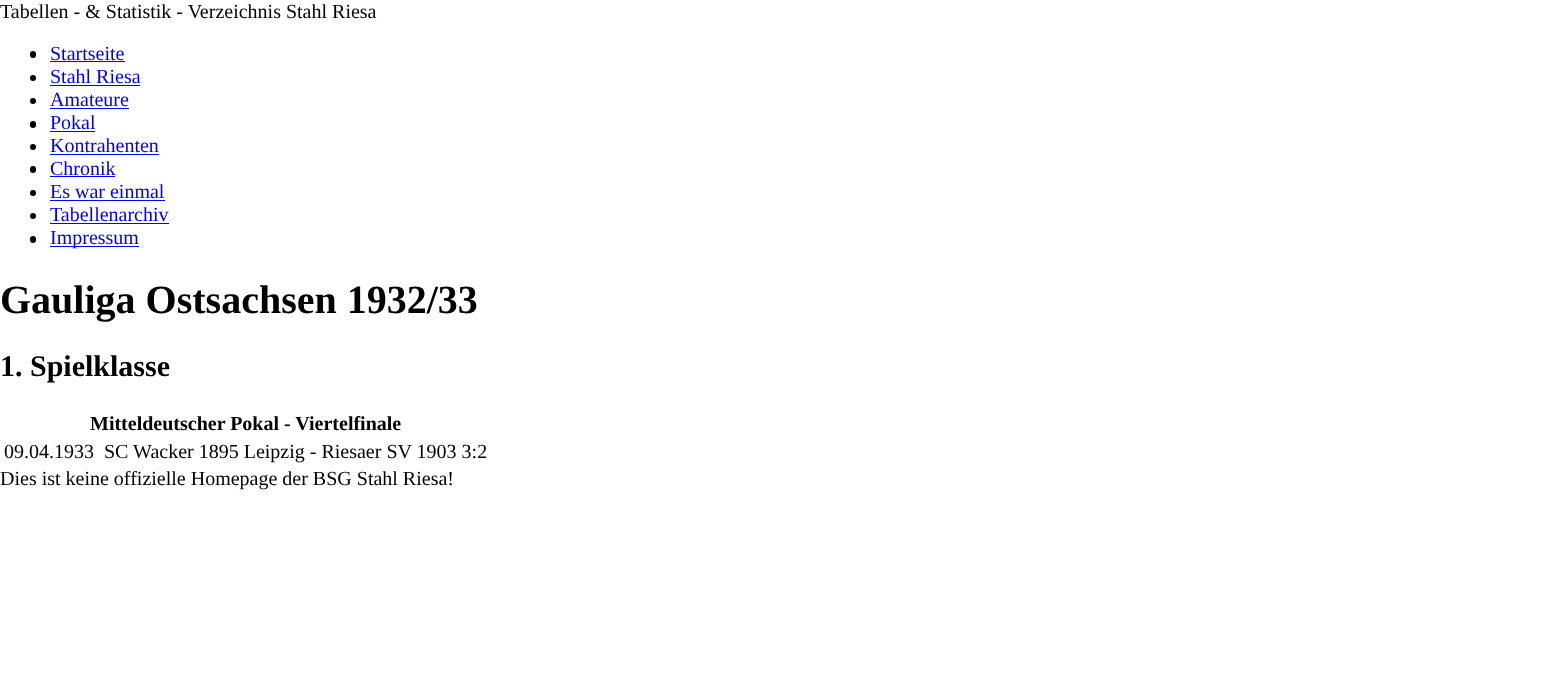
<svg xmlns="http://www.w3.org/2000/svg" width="1561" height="675">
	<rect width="100%" height="100%" fill="#FFFFFF" />
	<text x="0" y="18" font-family="Liberation Serif" font-size="20" fill="#000000">Tabellen - &amp; Statistik - Verzeichnis Stahl Riesa</text>
	<rect x="30" y="51" width="6" height="7" rx="3" fill="#000000" />
	<text x="50" y="60" font-family="Liberation Serif" font-size="20" fill="#0000EE">Startseite</text>
	<rect x="50" y="61" width="75" height="1" fill="#0000EE" />
	<circle cx="33" cy="78" r="3" fill="#000000" />
	<text x="50" y="83" font-family="Liberation Serif" font-size="20" fill="#0000EE">Stahl Riesa</text>
	<rect x="50" y="85" width="90" height="1" fill="#0000EE" />
	<circle cx="33" cy="101" r="3" fill="#000000" />
	<text x="50" y="106" font-family="Liberation Serif" font-size="20" fill="#0000EE">Amateure</text>
	<rect x="50" y="108" width="79" height="1" fill="#0000EE" />
	<rect x="30" y="121" width="6" height="7" rx="3" fill="#000000" />
	<text x="50" y="129" font-family="Liberation Serif" font-size="20" fill="#0000EE">Pokal</text>
	<rect x="50" y="131" width="45" height="1" fill="#0000EE" />
	<circle cx="33" cy="147" r="3" fill="#000000" />
	<text x="50" y="152" font-family="Liberation Serif" font-size="20" fill="#0000EE">Kontrahenten</text>
	<rect x="50" y="154" width="109" height="1" fill="#0000EE" />
	<rect x="30" y="166" width="6" height="7" rx="3" fill="#000000" />
	<text x="50" y="175" font-family="Liberation Serif" font-size="20" fill="#0000EE">Chronik</text>
	<rect x="50" y="176" width="65" height="1" fill="#0000EE" />
	<circle cx="33" cy="193" r="3" fill="#000000" />
	<text x="50" y="198" font-family="Liberation Serif" font-size="20" fill="#0000EE">Es war einmal</text>
	<rect x="50" y="200" width="115" height="1" fill="#0000EE" />
	<circle cx="33" cy="216" r="3" fill="#000000" />
	<text x="50" y="221" font-family="Liberation Serif" font-size="20" fill="#0000EE">Tabellenarchiv</text>
	<rect x="50" y="223" width="119" height="1" fill="#0000EE" />
	<rect x="30" y="236" width="6" height="7" rx="3" fill="#000000" />
	<rect x="50" y="246" width="89" height="1" fill="#0000EE" />
	<text x="50" y="244" font-family="Liberation Serif" font-size="20" fill="#0000EE">Impressum</text>
	<text x="0" y="313" font-family="Liberation Serif" font-size="40" font-weight="700" fill="#000000">Gauliga Ostsachsen 1932/33</text>
	<text x="0" y="376" font-family="Liberation Serif" font-size="30" font-weight="700" fill="#000000">1. Spielklasse</text>
	<text x="90" y="430" font-family="Liberation Serif" font-size="20" font-weight="700" fill="#000000">Mitteldeutscher Pokal - Viertelfinale</text>
	<g font-family="Liberation Serif" font-size="20" fill="#000000">
		<text x="4" y="458">09.04.1933</text>
		<text x="104" y="458">SC Wacker 1895 Leipzig - Riesaer SV 1903 3:2</text>
		<text x="0" y="485">Dies ist keine offizielle Homepage der BSG Stahl Riesa!</text>
	</g>
</svg>
